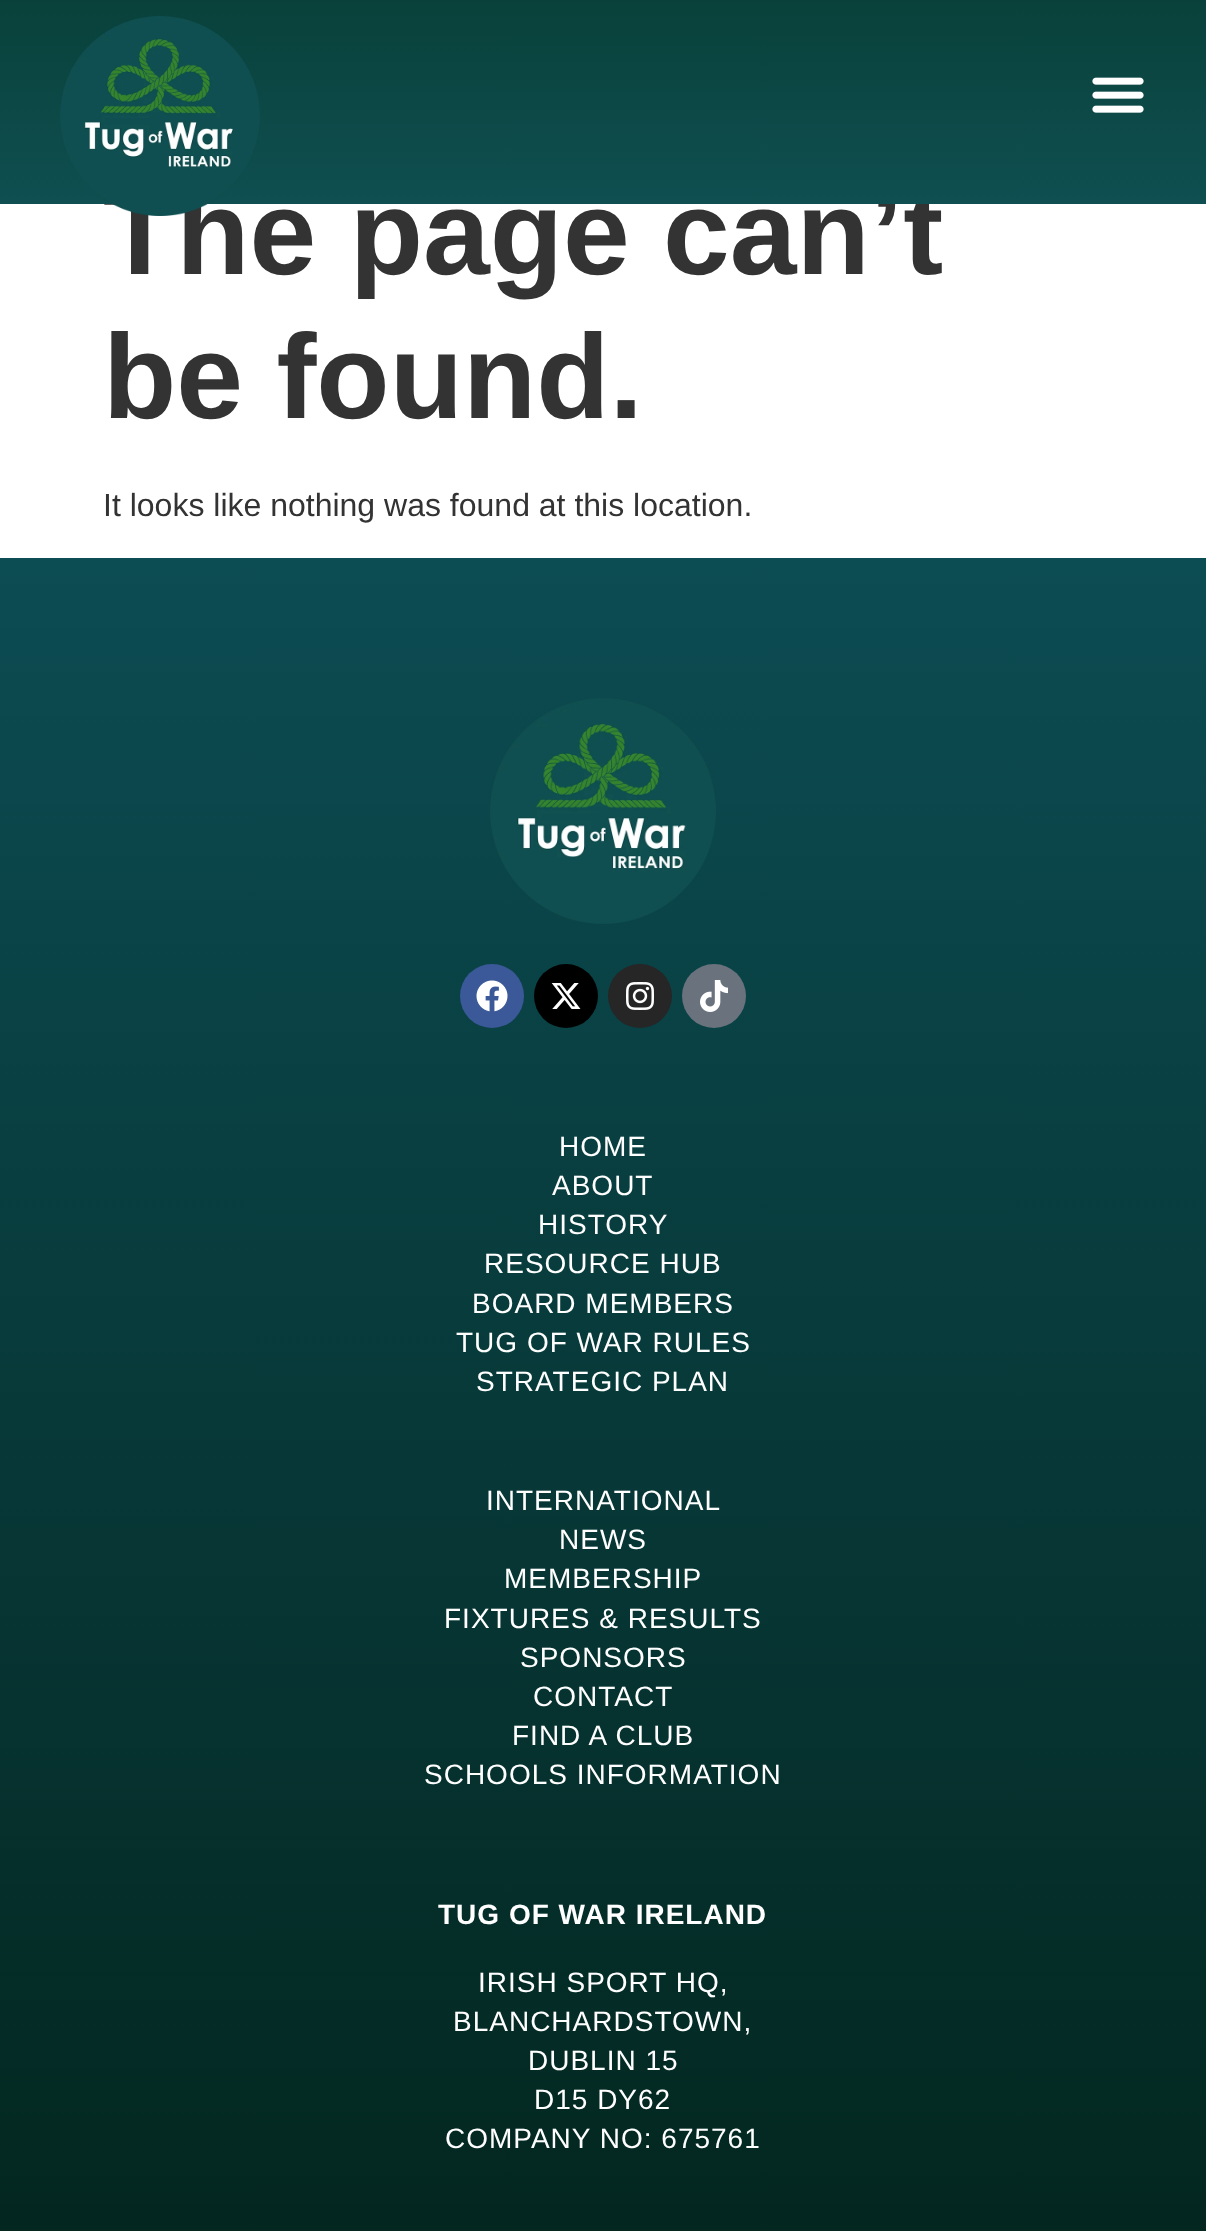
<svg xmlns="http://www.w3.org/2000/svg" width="1206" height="2231">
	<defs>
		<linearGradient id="g1" gradientUnits="userSpaceOnUse" x1="603" y1="204" x2="603" y2="-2"><stop offset="0" stop-color="#0F4F51" /><stop offset="1" stop-color="#09413A" /></linearGradient>
		<linearGradient id="g2" gradientUnits="userSpaceOnUse" x1="603" y1="558" x2="603" y2="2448"><stop offset="0" stop-color="#0C4C53" /><stop offset="1" stop-color="#022219" /></linearGradient>
	</defs>
	<rect width="100%" height="100%" fill="#FFFFFF" />
	<text x="103" y="274" font-family="Liberation Sans" font-size="120" font-weight="700" fill="#333333">The page can’t</text>
	<rect x="0" y="0" width="1206" height="204" fill="url(#g1)" />
	<image x="60" y="16" width="200" height="200" href="assets/img1.png" />
	<image x="1092" y="77" width="52" height="36" href="assets/img2.png" />
	<text x="103" y="418" font-family="Liberation Sans" font-size="120" font-weight="700" fill="#333333">be found.</text>
	<text x="103" y="516" font-family="Liberation Sans" font-size="32" fill="#333333">It looks like nothing was found at this location.</text>
	<rect x="0" y="558" width="1206" height="1673" fill="url(#g2)" />
	<image x="490" y="698" width="226" height="226" href="assets/img3.png" />
	<circle cx="492" cy="996" r="32" fill="#3B5998" />
	<image x="476" y="980" width="32" height="32" href="assets/img4.png" />
	<circle cx="566" cy="996" r="32" fill="#000000" />
	<image x="551" y="983" width="30" height="26" href="assets/img5.png" />
	<circle cx="640" cy="996" r="32" fill="#262626" />
	<image x="626" y="982" width="28" height="28" href="assets/img6.png" />
	<circle cx="714" cy="996" r="32" fill="#69727D" />
	<image x="700" y="980" width="28" height="32" href="assets/img7.png" />
	<g font-family="Liberation Sans" font-size="28" letter-spacing="1" fill="#FFFFFF">
		<text x="559" y="1156">HOME</text>
		<text x="552" y="1195">ABOUT</text>
		<text x="538" y="1234">HISTORY</text>
		<text x="484" y="1273">RESOURCE HUB</text>
		<text x="472" y="1313">BOARD MEMBERS</text>
		<text x="456" y="1352">TUG OF WAR RULES</text>
		<text x="476" y="1391">STRATEGIC PLAN</text>
		<text x="486" y="1510">INTERNATIONAL</text>
		<text x="559" y="1549">NEWS</text>
		<text x="504" y="1588">MEMBERSHIP</text>
		<text x="444" y="1628">FIXTURES &amp; RESULTS</text>
		<text x="520" y="1667">SPONSORS</text>
		<text x="533" y="1706">CONTACT</text>
		<text x="512" y="1745">FIND A CLUB</text>
		<text x="424" y="1784">SCHOOLS INFORMATION</text>
	</g>
	<text x="438" y="1924" font-family="Liberation Sans" font-size="28" font-weight="700" letter-spacing="1" fill="#FFFFFF">TUG OF WAR IRELAND</text>
	<g font-family="Liberation Sans" font-size="28" letter-spacing="1" fill="#FFFFFF">
		<text x="478" y="1992">IRISH SPORT HQ,</text>
		<text x="453" y="2031">BLANCHARDSTOWN,</text>
		<text x="528" y="2070">DUBLIN 15</text>
		<text x="534" y="2109">D15 DY62</text>
		<text x="445" y="2148">COMPANY NO: 675761</text>
	</g>
</svg>
